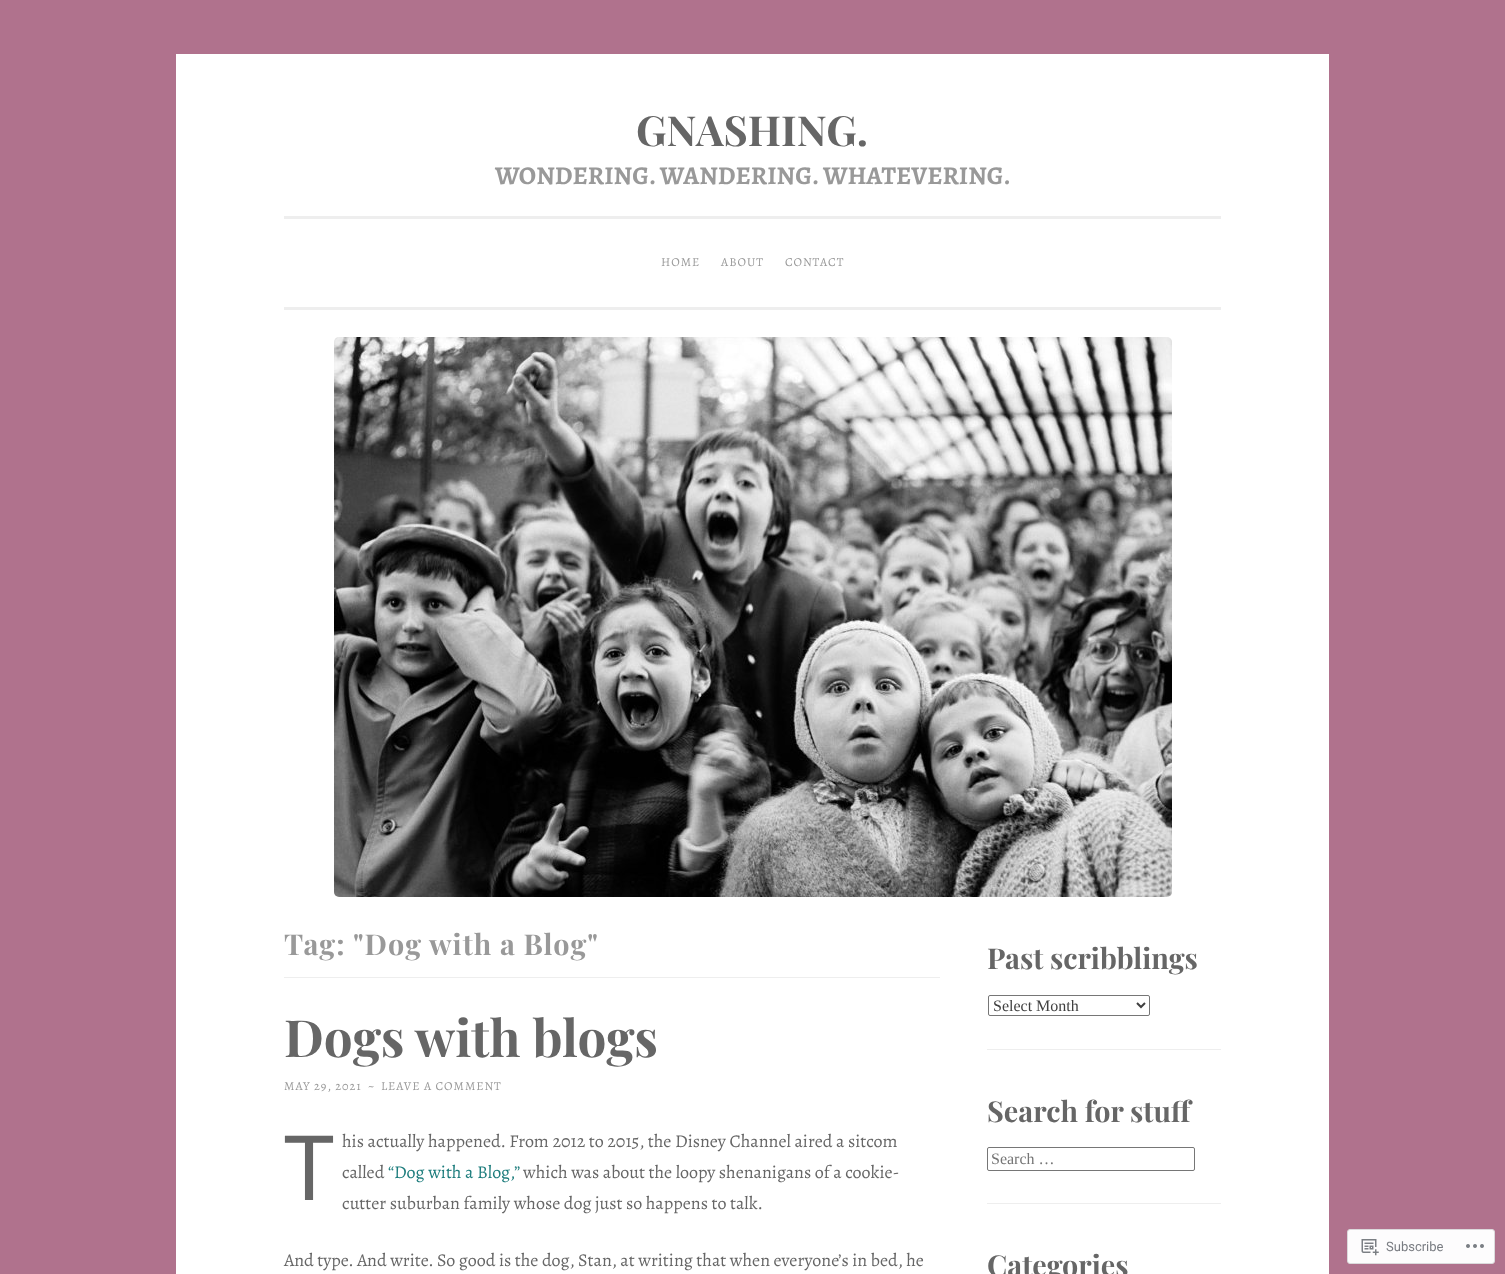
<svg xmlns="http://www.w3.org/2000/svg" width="1505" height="1274">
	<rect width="100%" height="100%" fill="#B0728D" />
	<rect x="176" y="54" width="1153" height="1220" fill="#FFFFFF" />
	<rect x="284" y="307" width="937" height="3" fill="#EEEEEE" />
	<text x="636" y="146" font-family="Playfair Display" font-size="41.5" font-weight="700" fill="#666666">GNASHING.</text>
	<text x="495" y="184" font-family="Alegreya" font-size="25.6" font-weight="700" fill="#999999">WONDERING. WANDERING. WHATEVERING.</text>
	<rect x="284" y="216" width="937" height="3" fill="#EEEEEE" />
	<g font-family="Alegreya" font-size="12.25" letter-spacing="1" fill="#999999">
		<text x="661" y="266">HOME</text>
		<text x="721" y="266">ABOUT</text>
		<text x="785" y="266">CONTACT</text>
	</g>
	<image x="334" y="337" width="838" height="560" href="assets/img1.png" />
	<rect x="284" y="977" width="656" height="1" fill="#EEEEEE" />
	<g font-family="Playfair Display" font-size="28.75" font-weight="700" letter-spacing="1" fill="#999999">
		<text x="284" y="955">Tag:</text>
		<text x="353" y="955">"Dog with a Blog"</text>
	</g>
	<text x="284" y="1057" font-family="Playfair Display" font-size="51.25" font-weight="700" fill="#666666">Dogs with blogs</text>
	<g font-family="Alegreya" font-size="12.25" letter-spacing="1" fill="#999999">
		<text x="284" y="1090">MAY 29, 2021</text>
		<text x="368" y="1090">~</text>
		<text x="381" y="1090">LEAVE A COMMENT</text>
	</g>
	<text x="284" y="1200" font-family="Noto Sans" font-size="90" fill="#666666">T</text>
	<g font-family="Alegreya" font-size="18" fill="#666666">
		<text x="342" y="1147">his actually happened. From 2012 to 2015, the Disney Channel aired a sitcom</text>
		<text x="342" y="1178">called</text>
	</g>
	<text x="388" y="1178" font-family="Alegreya" font-size="18" fill="#1C7C7C">“Dog with a Blog,”</text>
	<g font-family="Alegreya" font-size="18" fill="#666666">
		<text x="523" y="1178">which was about the loopy shenanigans of a cookie-</text>
		<text x="342" y="1209">cutter suburban family whose dog just so happens to talk.</text>
		<text x="284" y="1266">And type. And write. So good is the dog, Stan, at writing that when everyone’s in bed, he</text>
	</g>
	<rect x="987" y="1049" width="234" height="1" fill="#EEEEEE" />
	<text x="987" y="969" font-family="Playfair Display" font-size="28.75" font-weight="700" fill="#666666">Past scribblings</text>
	<rect x="988.5" y="995.5" width="161" height="20" rx="1.5" fill="none" stroke="#767676" />
	<path d="M1137 1003L1141 1007L1145 1003" fill="none" stroke="#404040" stroke-width="2" />
	<text x="993" y="1011" font-family="Liberation Serif" font-size="16" fill="#404040">Select Month</text>
	<rect x="987" y="1203" width="234" height="1" fill="#EEEEEE" />
	<text x="987" y="1122" font-family="Playfair Display" font-size="28.75" font-weight="700" fill="#666666">Search for stuff</text>
	<rect x="987.5" y="1147.5" width="207" height="23" rx="1.5" fill="none" stroke="#767676" />
	<text x="991" y="1164" font-family="Liberation Serif" font-size="16" fill="#757575">Search …</text>
	<text x="987" y="1276" font-family="Playfair Display" font-size="28.75" font-weight="700" fill="#666666">Categories</text>
	<rect x="1347.5" y="1229.5" width="147" height="34" rx="2.5" fill="#FDFCFD" stroke="#DBDADC" />
	<image x="1361" y="1239" width="18" height="17" href="assets/img2.png" />
	<text x="1386" y="1251" font-family="Roboto" font-size="13" fill="#797C82">Subscribe</text>
	<image x="1466" y="1244" width="18" height="4" href="assets/img3.png" />
</svg>
